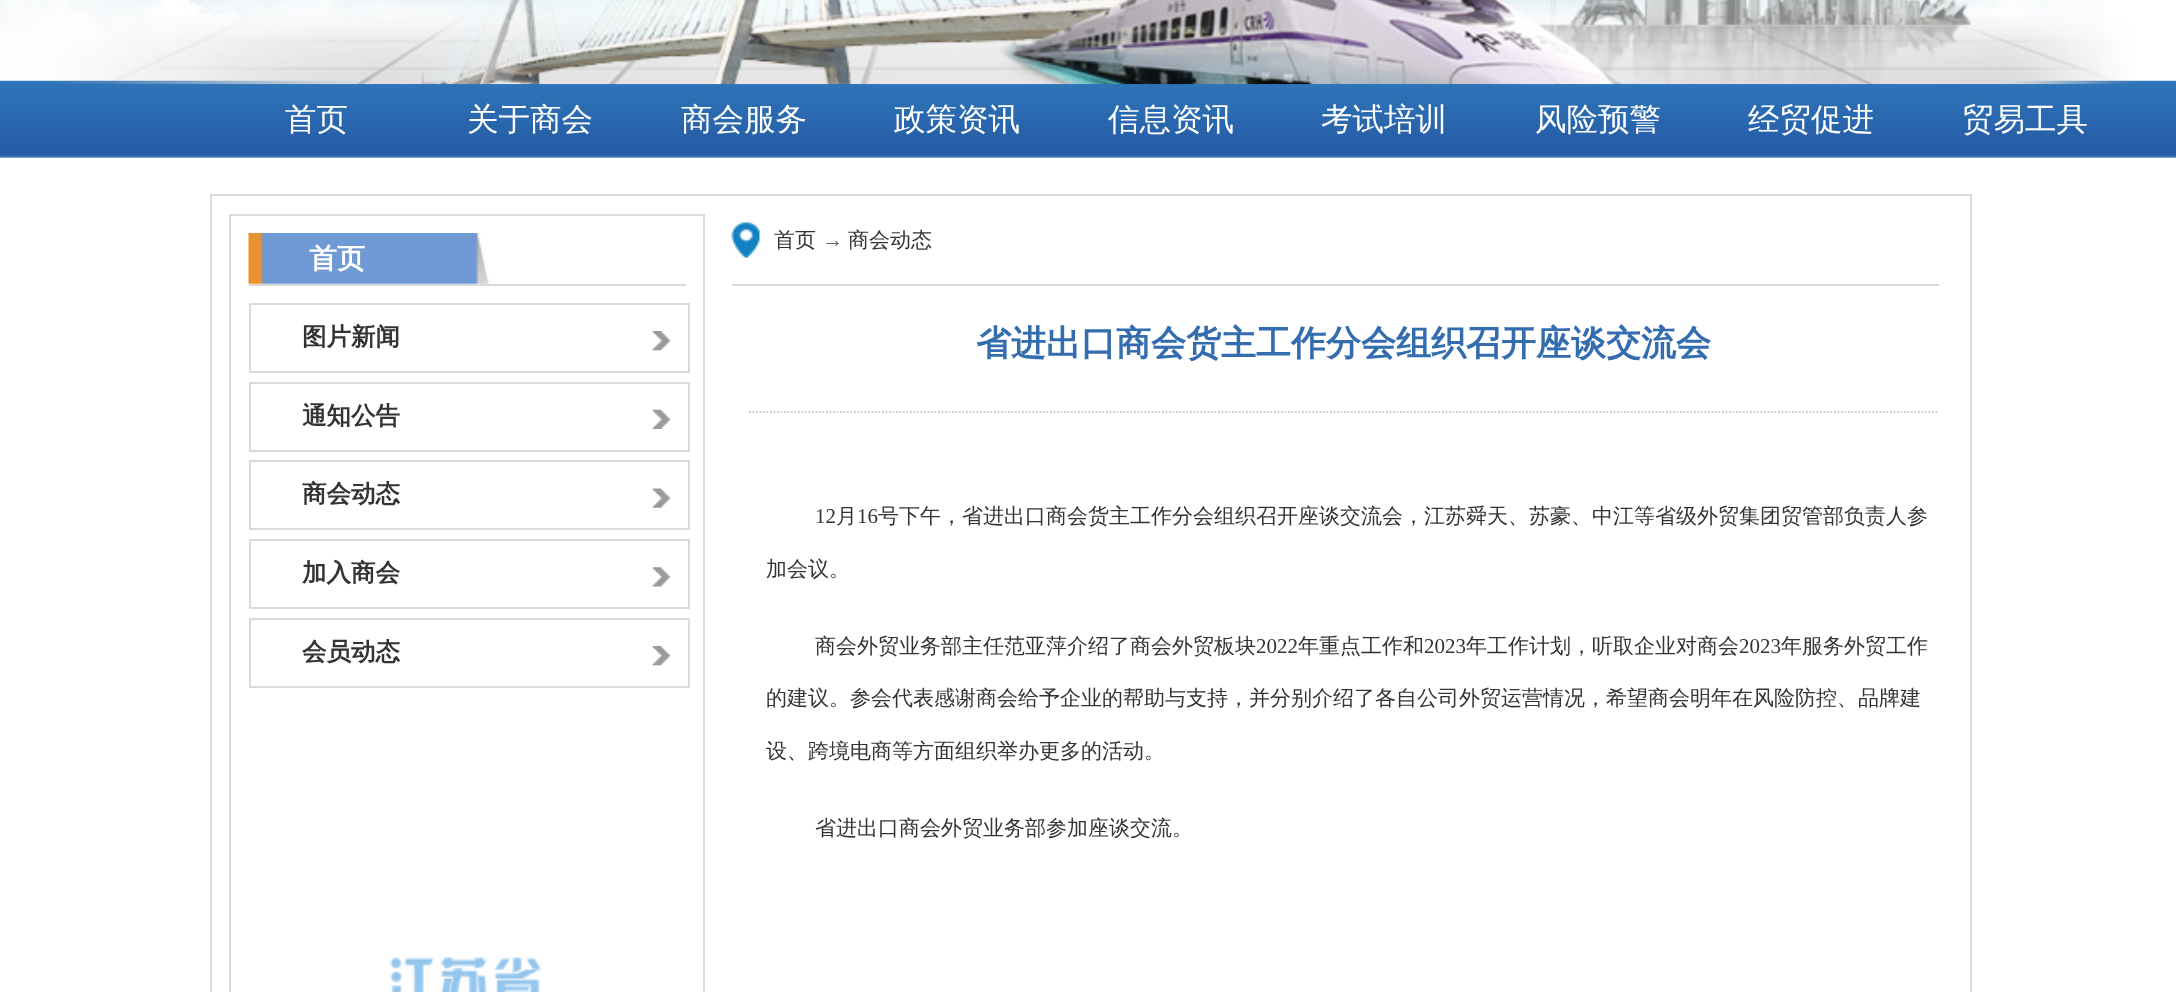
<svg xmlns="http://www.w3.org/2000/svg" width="2176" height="992">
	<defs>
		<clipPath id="clip1"><rect x="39" y="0" width="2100" height="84" /></clipPath>
		<clipPath id="clip2"><path d="M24 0H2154V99H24ZM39-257H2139V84H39Z" clip-rule="evenodd" /></clipPath>
	</defs>
	<rect width="100%" height="100%" fill="#FFFFFF" />
	<image x="0" y="0" width="2103" height="81" href="assets/img1.png" />
	<image x="0" y="80" width="2176" height="78" href="assets/img3.png" />
	<g clip-path="url(#clip1)">
		<g clip-path="url(#clip2)">
			<rect x="39" y="-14" width="2100" height="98" fill="#DDDDDD" filter="blur(4.5px)" />
		</g>
	</g>
	<image x="55" y="0" width="2078" height="85" href="assets/img2.png" />
	<g font-family="WenQuanYi Zen Hei" font-size="31.5" font-weight="500" fill="#FFFFFF">
		<text x="285" y="130">首页</text>
		<text x="467" y="130">关于商会</text>
		<text x="681" y="130">商会服务</text>
		<text x="894" y="130">政策资讯</text>
		<text x="1108" y="130">信息资讯</text>
		<text x="1321" y="130">考试培训</text>
		<text x="1535" y="130">风险预警</text>
		<text x="1748" y="130">经贸促进</text>
		<text x="1962" y="130">贸易工具</text>
	</g>
	<rect x="211" y="195" width="1760" height="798" fill="none" stroke="#DADADA" stroke-width="2" />
	<rect x="230" y="215" width="474" height="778" fill="none" stroke="#DADADA" stroke-width="2" />
	<image x="248" y="233" width="241" height="51" href="assets/img4.png" />
	<rect x="249" y="284" width="437" height="2" fill="#DADADA" />
	<text x="309" y="268" font-family="WenQuanYi Zen Hei" font-size="28" font-weight="700" fill="#FFFFFF">首页</text>
	<image x="652" y="331" width="19" height="20" href="assets/img5.png" />
	<rect x="250" y="304" width="439" height="68" fill="none" stroke="#DADADA" stroke-width="2" />
	<text x="302" y="345" font-family="WenQuanYi Zen Hei" font-size="24.5" font-weight="700" fill="#333333">图片新闻</text>
	<image x="652" y="409" width="19" height="20" href="assets/img6.png" />
	<rect x="250" y="383" width="439" height="68" fill="none" stroke="#DADADA" stroke-width="2" />
	<text x="302" y="424" font-family="WenQuanYi Zen Hei" font-size="24.5" font-weight="700" fill="#333333">通知公告</text>
	<image x="652" y="488" width="19" height="20" href="assets/img7.png" />
	<rect x="250" y="461" width="439" height="68" fill="none" stroke="#DADADA" stroke-width="2" />
	<text x="302" y="502" font-family="WenQuanYi Zen Hei" font-size="24.5" font-weight="700" fill="#333333">商会动态</text>
	<image x="652" y="567" width="19" height="20" href="assets/img8.png" />
	<rect x="250" y="540" width="439" height="68" fill="none" stroke="#DADADA" stroke-width="2" />
	<text x="302" y="581" font-family="WenQuanYi Zen Hei" font-size="24.5" font-weight="700" fill="#333333">加入商会</text>
	<image x="652" y="646" width="19" height="20" href="assets/img5.png" />
	<rect x="250" y="619" width="439" height="68" fill="none" stroke="#DADADA" stroke-width="2" />
	<text x="302" y="660" font-family="WenQuanYi Zen Hei" font-size="24.5" font-weight="700" fill="#333333">会员动态</text>
	<image x="390" y="957" width="152" height="35" href="assets/img9.png" />
	<image x="731" y="222" width="29" height="36" href="assets/img10.png" />
	<rect x="732" y="284" width="1207" height="2" fill="#DADADA" />
	<text x="774" y="247" font-family="WenQuanYi Zen Hei" font-size="21" font-weight="500" fill="#333333">首页</text>
	<text x="822" y="247" font-family="Liberation Serif" font-size="21" fill="#666666">→</text>
	<text x="848" y="247" font-family="WenQuanYi Zen Hei" font-size="21" font-weight="500" fill="#333333">商会动态</text>
	<text x="976" y="355" font-family="WenQuanYi Zen Hei" font-size="35" font-weight="700" fill="#336DAF">省进出口商会货主工作分会组织召开座谈交流会</text>
	<path d="M749 412H1939" fill="none" stroke="#CCCCCC" stroke-width="1.8" stroke-dasharray="1.75 1.75" />
	<text x="815" y="523" font-family="Liberation Serif" font-size="21" fill="#333333">12</text>
	<text x="836" y="523" font-family="WenQuanYi Zen Hei" font-size="21" font-weight="500" fill="#333333">月</text>
	<text x="857" y="523" font-family="Liberation Serif" font-size="21" fill="#333333">16</text>
	<g font-family="WenQuanYi Zen Hei" font-size="21" font-weight="500" fill="#333333">
		<text x="878" y="523">号下午，省进出口商会货主工作分会组织召开座谈交流会，江苏舜天、苏豪、中江等省级外贸集团贸管部负责人参</text>
		<text x="766" y="576">加会议。</text>
		<text x="815" y="653">商会外贸业务部主任范亚萍介绍了商会外贸板块</text>
	</g>
	<text x="1256" y="653" font-family="Liberation Serif" font-size="21" fill="#333333">2022</text>
	<text x="1298" y="653" font-family="WenQuanYi Zen Hei" font-size="21" font-weight="500" fill="#333333">年重点工作和</text>
	<text x="1424" y="653" font-family="Liberation Serif" font-size="21" fill="#333333">2023</text>
	<text x="1466" y="653" font-family="WenQuanYi Zen Hei" font-size="21" font-weight="500" fill="#333333">年工作计划，听取企业对商会</text>
	<text x="1739" y="653" font-family="Liberation Serif" font-size="21" fill="#333333">2023</text>
	<g font-family="WenQuanYi Zen Hei" font-size="21" font-weight="500" fill="#333333">
		<text x="1781" y="653">年服务外贸工作</text>
		<text x="766" y="705">的建议。参会代表感谢商会给予企业的帮助与支持，并分别介绍了各自公司外贸运营情况，希望商会明年在风险防控、品牌建</text>
		<text x="766" y="758">设、跨境电商等方面组织举办更多的活动。</text>
		<text x="815" y="835">省进出口商会外贸业务部参加座谈交流。</text>
	</g>
</svg>
